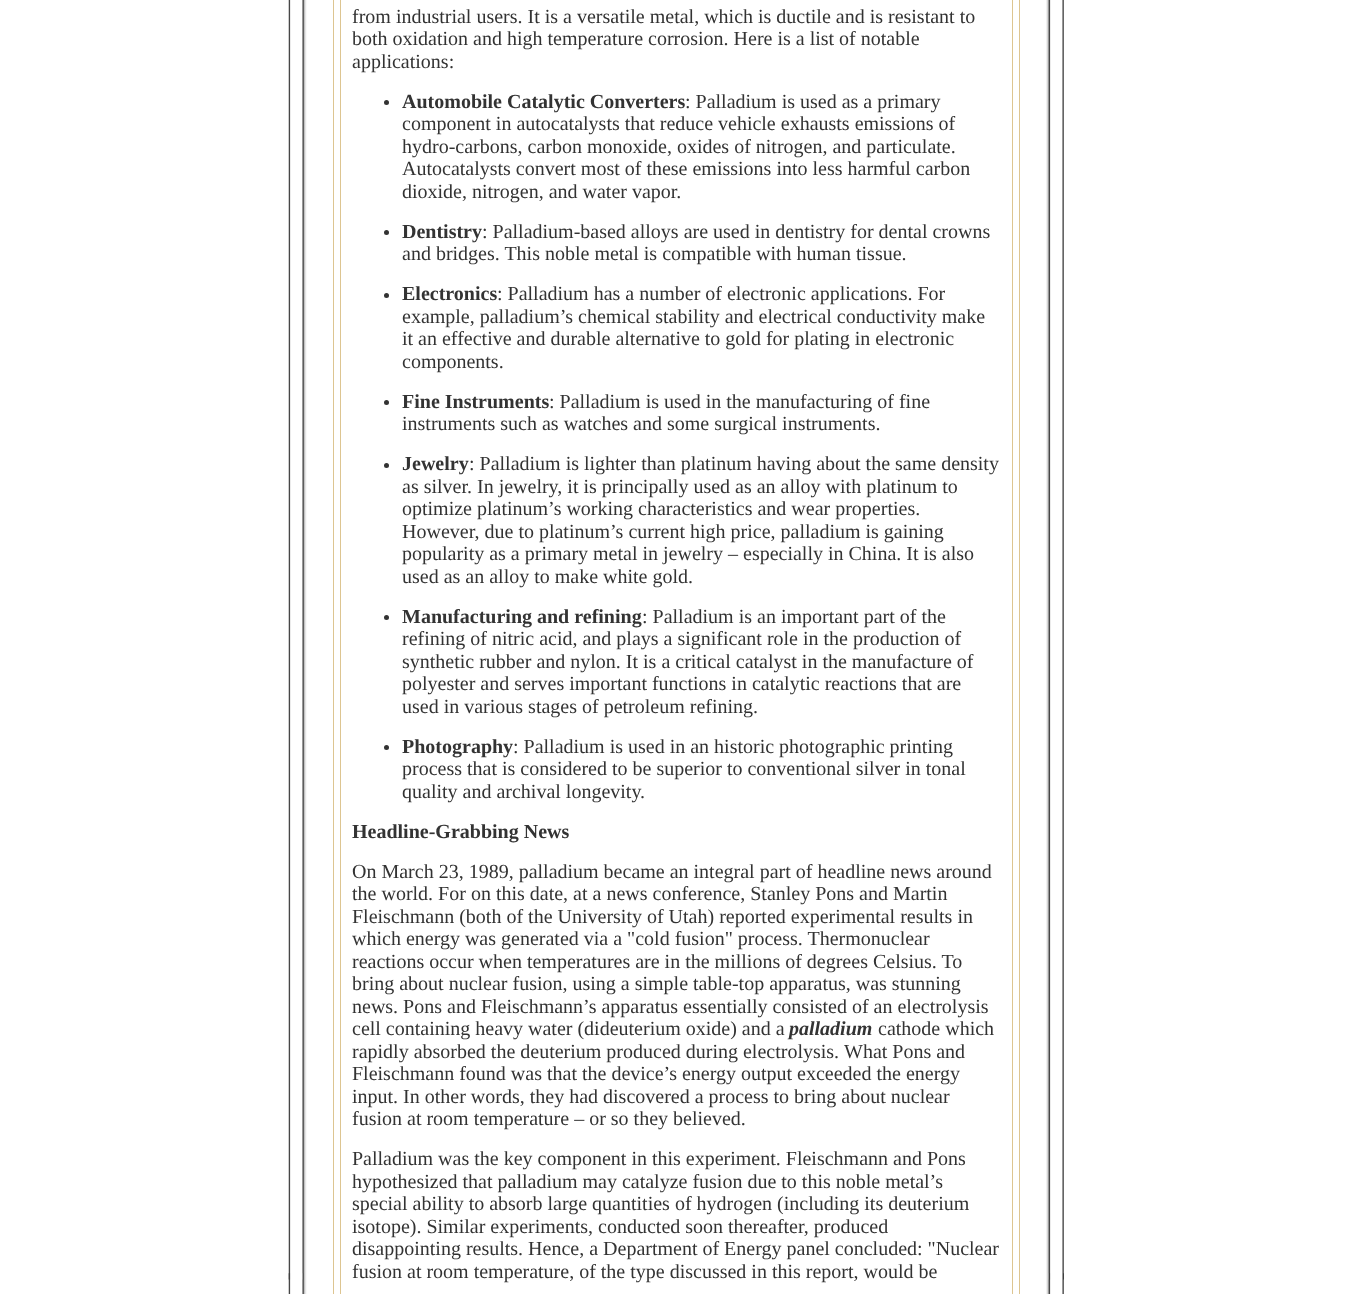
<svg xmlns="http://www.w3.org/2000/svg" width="1351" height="1294">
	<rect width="100%" height="100%" fill="#FFFFFF" />
	<image x="288" y="0" width="19" height="1294" href="assets/img1.png" />
	<image x="288" y="1273" width="16" height="7" href="assets/img2.png" />
	<rect x="333.5" y="-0.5" width="686" height="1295" fill="none" stroke="#DDC591" />
	<rect x="340.5" y="-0.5" width="672" height="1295" fill="none" stroke="#DDC591" />
	<g font-family="Liberation Serif" font-size="20" fill="#333333">
		<text x="352" y="23">from industrial users. It is a versatile metal, which is ductile and is resistant to</text>
		<text x="352" y="45">both oxidation and high temperature corrosion. Here is a list of notable</text>
		<text x="352" y="68">applications:</text>
	</g>
	<circle cx="386.5" cy="102.5" r="2.5" fill="#333333" />
	<text x="402" y="108" font-family="Liberation Serif" font-size="20" font-weight="700" fill="#333333">Automobile Catalytic Converters</text>
	<g font-family="Liberation Serif" font-size="20" fill="#333333">
		<text x="685" y="108">: Palladium is used as a primary</text>
		<text x="402" y="130">component in autocatalysts that reduce vehicle exhausts emissions of</text>
		<text x="402" y="153">hydro-carbons, carbon monoxide, oxides of nitrogen, and particulate.</text>
		<text x="402" y="175">Autocatalysts convert most of these emissions into less harmful carbon</text>
		<text x="402" y="198">dioxide, nitrogen, and water vapor.</text>
	</g>
	<circle cx="386.5" cy="232.5" r="2.5" fill="#333333" />
	<text x="402" y="238" font-family="Liberation Serif" font-size="20" font-weight="700" fill="#333333">Dentistry</text>
	<g font-family="Liberation Serif" font-size="20" fill="#333333">
		<text x="482" y="238">: Palladium-based alloys are used in dentistry for dental crowns</text>
		<text x="402" y="260">and bridges. This noble metal is compatible with human tissue.</text>
	</g>
	<circle cx="386.5" cy="295.5" r="2.5" fill="#333333" />
	<text x="402" y="300" font-family="Liberation Serif" font-size="20" font-weight="700" fill="#333333">Electronics</text>
	<g font-family="Liberation Serif" font-size="20" fill="#333333">
		<text x="497" y="300">: Palladium has a number of electronic applications. For</text>
		<text x="402" y="323">example, palladium’s chemical stability and electrical conductivity make</text>
		<text x="402" y="345">it an effective and durable alternative to gold for plating in electronic</text>
		<text x="402" y="368">components.</text>
	</g>
	<circle cx="386.5" cy="402.5" r="2.5" fill="#333333" />
	<text x="402" y="408" font-family="Liberation Serif" font-size="20" font-weight="700" fill="#333333">Fine Instruments</text>
	<g font-family="Liberation Serif" font-size="20" fill="#333333">
		<text x="549" y="408">: Palladium is used in the manufacturing of fine</text>
		<text x="402" y="430">instruments such as watches and some surgical instruments.</text>
	</g>
	<circle cx="386.5" cy="465.5" r="2.5" fill="#333333" />
	<text x="402" y="470" font-family="Liberation Serif" font-size="20" font-weight="700" fill="#333333">Jewelry</text>
	<g font-family="Liberation Serif" font-size="20" fill="#333333">
		<text x="469" y="470">: Palladium is lighter than platinum having about the same density</text>
		<text x="402" y="493">as silver. In jewelry, it is principally used as an alloy with platinum to</text>
		<text x="402" y="515">optimize platinum’s working characteristics and wear properties.</text>
		<text x="402" y="538">However, due to platinum’s current high price, palladium is gaining</text>
		<text x="402" y="560">popularity as a primary metal in jewelry – especially in China. It is also</text>
		<text x="402" y="583">used as an alloy to make white gold.</text>
	</g>
	<circle cx="386.5" cy="617.5" r="2.5" fill="#333333" />
	<text x="402" y="623" font-family="Liberation Serif" font-size="20" font-weight="700" fill="#333333">Manufacturing and refining</text>
	<g font-family="Liberation Serif" font-size="20" fill="#333333">
		<text x="642" y="623">: Palladium is an important part of the</text>
		<text x="402" y="645">refining of nitric acid, and plays a significant role in the production of</text>
		<text x="402" y="668">synthetic rubber and nylon. It is a critical catalyst in the manufacture of</text>
		<text x="402" y="690">polyester and serves important functions in catalytic reactions that are</text>
		<text x="402" y="713">used in various stages of petroleum refining.</text>
	</g>
	<circle cx="386.5" cy="747.5" r="2.5" fill="#333333" />
	<text x="402" y="753" font-family="Liberation Serif" font-size="20" font-weight="700" fill="#333333">Photography</text>
	<g font-family="Liberation Serif" font-size="20" fill="#333333">
		<text x="513" y="753">: Palladium is used in an historic photographic printing</text>
		<text x="402" y="775">process that is considered to be superior to conventional silver in tonal</text>
		<text x="402" y="798">quality and archival longevity.</text>
	</g>
	<text x="352" y="838" font-family="Liberation Serif" font-size="20" font-weight="700" fill="#333333">Headline-Grabbing News</text>
	<g font-family="Liberation Serif" font-size="20" fill="#333333">
		<text x="352" y="878">On March 23, 1989, palladium became an integral part of headline news around</text>
		<text x="352" y="900">the world. For on this date, at a news conference, Stanley Pons and Martin</text>
		<text x="352" y="923">Fleischmann (both of the University of Utah) reported experimental results in</text>
		<text x="352" y="945">which energy was generated via a "cold fusion" process. Thermonuclear</text>
		<text x="352" y="968">reactions occur when temperatures are in the millions of degrees Celsius. To</text>
		<text x="352" y="990">bring about nuclear fusion, using a simple table-top apparatus, was stunning</text>
		<text x="352" y="1013">news. Pons and Fleischmann’s apparatus essentially consisted of an electrolysis</text>
		<text x="352" y="1035">cell containing heavy water (dideuterium oxide) and a</text>
	</g>
	<text x="789" y="1035" font-family="Liberation Serif" font-size="20" font-weight="700" font-style="italic" fill="#333333">palladium</text>
	<g font-family="Liberation Serif" font-size="20" fill="#333333">
		<text x="878" y="1035">cathode which</text>
		<text x="352" y="1058">rapidly absorbed the deuterium produced during electrolysis.</text>
		<text x="844" y="1058">What Pons and</text>
		<text x="352" y="1080">Fleischmann found was that the device’s energy output exceeded the energy</text>
		<text x="352" y="1103">input. In other words, they had discovered a process to bring about nuclear</text>
		<text x="352" y="1125">fusion at room temperature – or so they believed.</text>
		<text x="352" y="1165">Palladium was the key component in this experiment. Fleischmann and Pons</text>
		<text x="352" y="1188">hypothesized that palladium may catalyze fusion due to this noble metal’s</text>
		<text x="352" y="1210">special ability to absorb large quantities of hydrogen (including its deuterium</text>
		<text x="352" y="1233">isotope). Similar experiments, conducted soon thereafter, produced</text>
		<text x="352" y="1255">disappointing results. Hence, a Department of Energy panel concluded: "Nuclear</text>
		<text x="352" y="1278">fusion at room temperature, of the type discussed in this report, would be</text>
	</g>
	<image x="1046" y="0" width="18" height="1294" href="assets/img3.png" />
	<image x="1048" y="1273" width="16" height="7" href="assets/img4.png" />
</svg>
